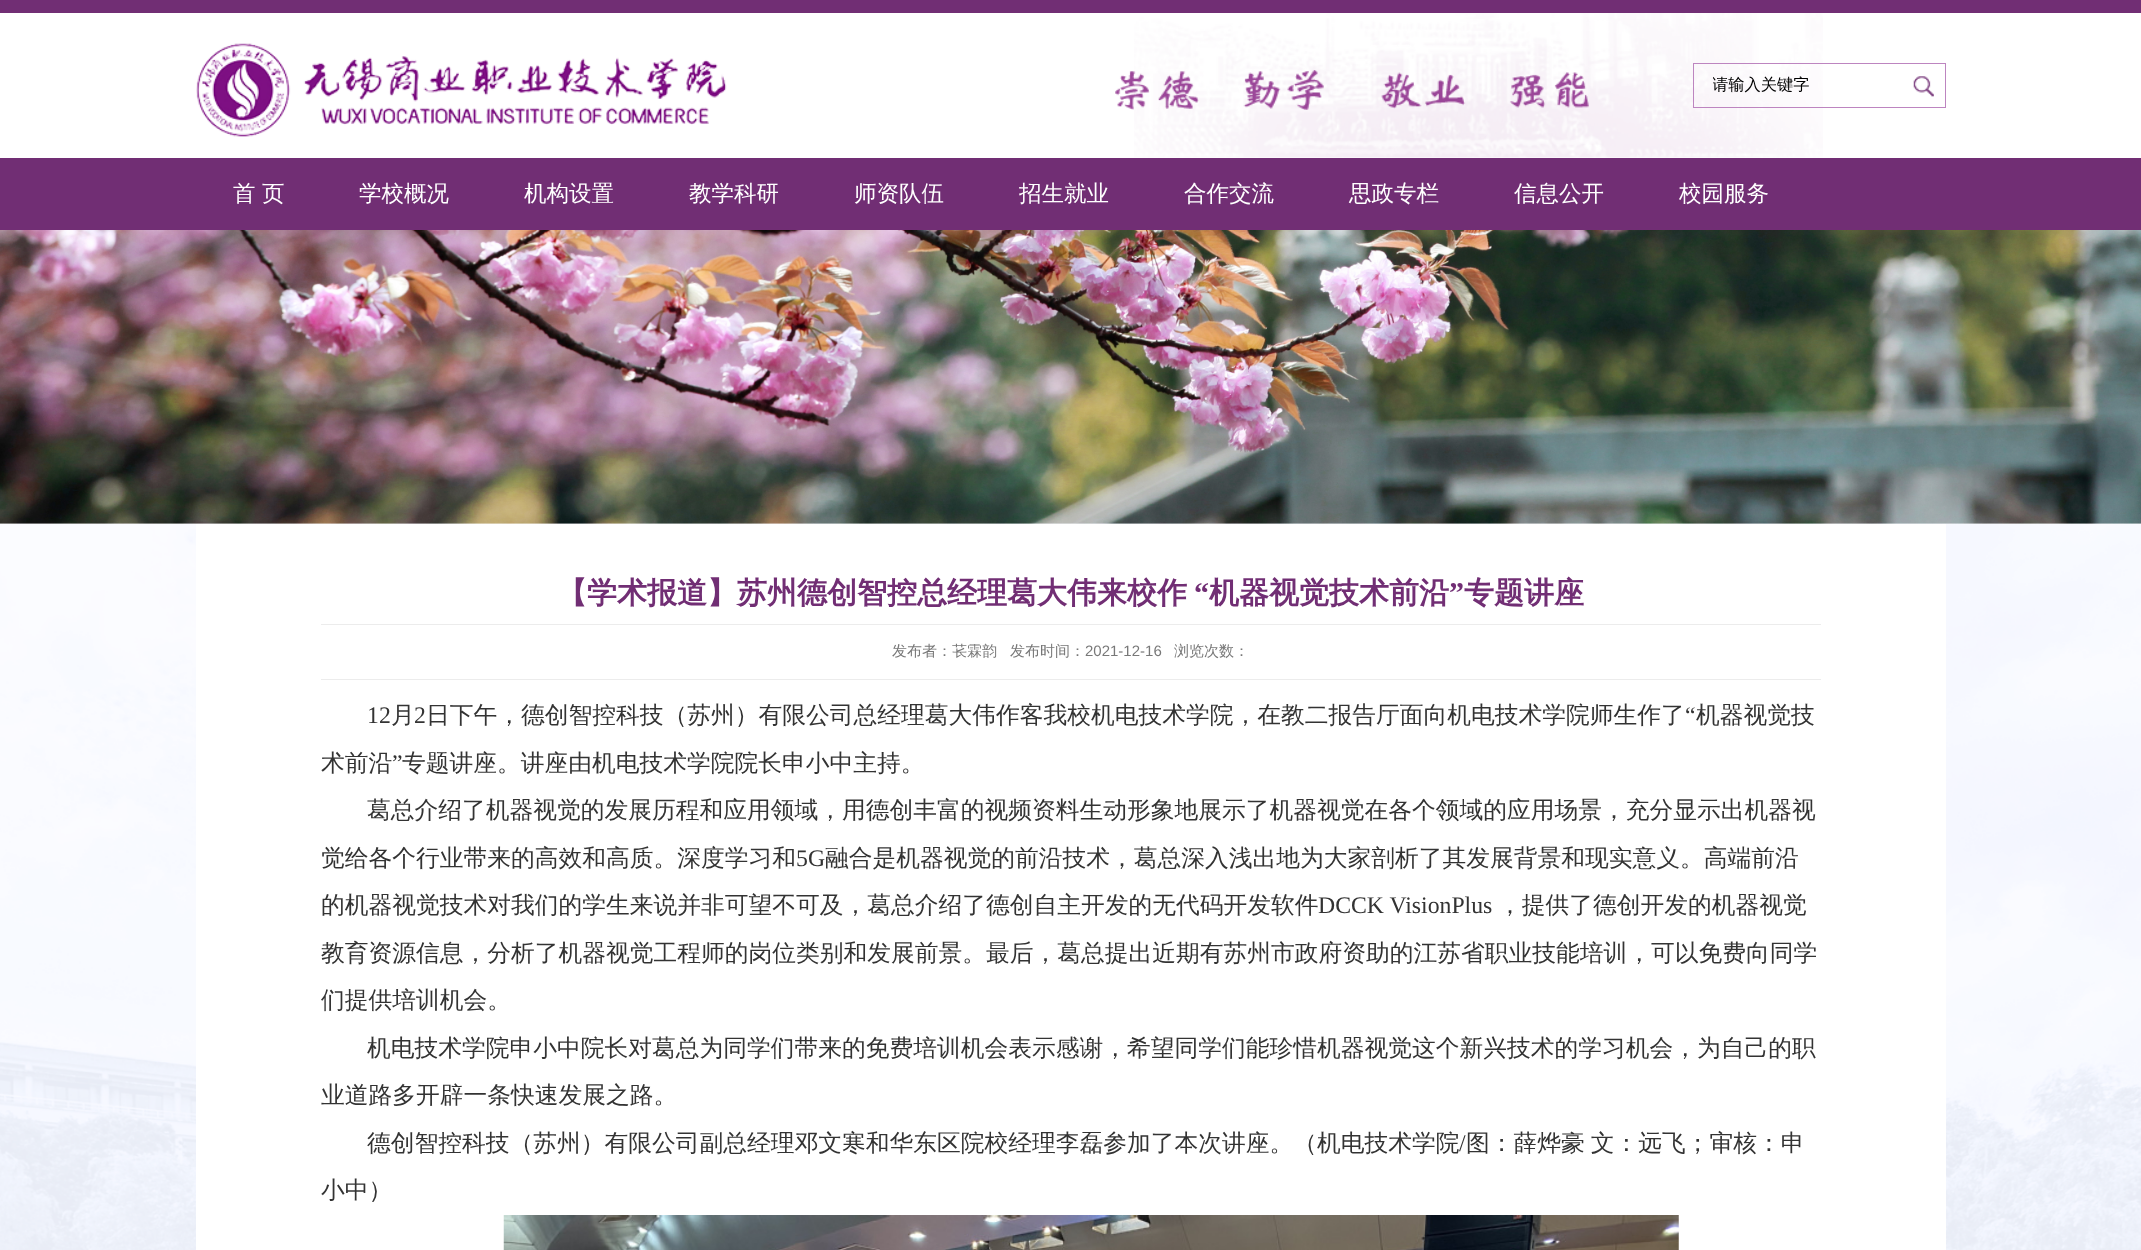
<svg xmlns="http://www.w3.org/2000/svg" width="2141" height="1250">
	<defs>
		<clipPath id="clip1"><rect x="1713" y="69" width="172" height="32" /></clipPath>
	</defs>
	<rect width="100%" height="100%" fill="#FFFFFF" />
	<image x="1134" y="13" width="689" height="145" href="assets/img1.png" />
	<rect x="0" y="0" width="2141" height="13" fill="#712E74" />
	<image x="196" y="43" width="531" height="94" href="assets/img2.png" />
	<image x="1115" y="70" width="474" height="40" href="assets/img3.png" />
	<rect x="1693.5" y="63.5" width="252" height="44" fill="none" stroke="#BD85C0" />
	<g clip-path="url(#clip1)">
		<text x="1712" y="90" font-family="WenQuanYi Zen Hei" font-size="16.25" font-weight="500" fill="#000000">请输入关键字</text>
	</g>
	<image x="1913" y="76" width="21" height="21" href="assets/img4.png" />
	<rect x="0" y="158" width="2141" height="72" fill="#712E74" />
	<g font-family="WenQuanYi Zen Hei" font-size="22.5" font-weight="500" fill="#FFFFFF">
		<text x="233" y="201">首</text>
		<text x="262" y="201">页</text>
		<text x="359" y="201">学校概况</text>
		<text x="524" y="201">机构设置</text>
		<text x="689" y="201">教学科研</text>
		<text x="854" y="201">师资队伍</text>
		<text x="1019" y="201">招生就业</text>
		<text x="1184" y="201">合作交流</text>
		<text x="1349" y="201">思政专栏</text>
		<text x="1514" y="201">信息公开</text>
		<text x="1679" y="201">校园服务</text>
	</g>
	<image x="0" y="230" width="2141" height="294" href="assets/img5.png" />
	<image x="0" y="523" width="2141" height="727" href="assets/img6.png" />
	<rect x="196" y="524" width="1750" height="726" fill="#FFFFFF" />
	<text x="557" y="603" font-family="WenQuanYi Zen Hei" font-size="30" font-weight="700" fill="#712E74">【学术报道】苏州德创智控总经理葛大伟来校作</text>
	<text x="1194" y="603" font-family="Liberation Serif" font-size="30" font-weight="700" fill="#712E74">“</text>
	<text x="1209" y="603" font-family="WenQuanYi Zen Hei" font-size="30" font-weight="700" fill="#712E74">机器视觉技术前沿</text>
	<text x="1449" y="603" font-family="Liberation Serif" font-size="30" font-weight="700" fill="#712E74">”</text>
	<text x="1464" y="603" font-family="WenQuanYi Zen Hei" font-size="30" font-weight="700" fill="#712E74">专题讲座</text>
	<rect x="321" y="624" width="1500" height="1" fill="#ECECEC" />
	<rect x="321" y="679" width="1500" height="1" fill="#ECECEC" />
	<g font-family="WenQuanYi Zen Hei" font-size="15" font-weight="500" fill="#787878">
		<text x="892" y="656">发布者：苌霖韵</text>
		<text x="1010" y="656">发布时间：</text>
	</g>
	<text x="1085" y="656" font-family="Liberation Sans" font-size="15" fill="#787878">2021-12-16</text>
	<text x="1174" y="656" font-family="WenQuanYi Zen Hei" font-size="15" font-weight="500" fill="#787878">浏览次数：</text>
	<text x="367" y="723" font-family="Liberation Serif" font-size="23.75" fill="#333333">12</text>
	<text x="391" y="723" font-family="WenQuanYi Zen Hei" font-size="23.75" font-weight="500" fill="#333333">月</text>
	<text x="414" y="723" font-family="Liberation Serif" font-size="23.75" fill="#333333">2</text>
	<text x="426" y="723" font-family="WenQuanYi Zen Hei" font-size="23.75" font-weight="500" fill="#333333">日下午，德创智控科技（苏州）有限公司总经理葛大伟作客我校机电技术学院，在教二报告厅面向机电技术学院师生作了</text>
	<text x="1685" y="723" font-family="Liberation Serif" font-size="23.75" fill="#333333">“</text>
	<g font-family="WenQuanYi Zen Hei" font-size="23.75" font-weight="500" fill="#333333">
		<text x="1696" y="723">机器视觉技</text>
		<text x="321" y="771">术前沿</text>
	</g>
	<text x="392" y="771" font-family="Liberation Serif" font-size="23.75" fill="#333333">”</text>
	<g font-family="WenQuanYi Zen Hei" font-size="23.75" font-weight="500" fill="#333333">
		<text x="402" y="771">专题讲座。讲座由机电技术学院院长申小中主持。</text>
		<text x="367" y="818">葛总介绍了机器视觉的发展历程和应用领域，用德创丰富的视频资料生动形象地展示了机器视觉在各个领域的应用场景，充分显示出机器视</text>
		<text x="321" y="866">觉给各个行业带来的高效和高质。深度学习和</text>
	</g>
	<text x="796" y="866" font-family="Liberation Serif" font-size="23.75" fill="#333333">5G</text>
	<g font-family="WenQuanYi Zen Hei" font-size="23.75" font-weight="500" fill="#333333">
		<text x="825" y="866">融合是机器视觉的前沿技术，葛总深入浅出地为大家剖析了其发展背景和现实意义。高端前沿</text>
		<text x="321" y="913">的机器视觉技术对我们的学生来说并非可望不可及，葛总介绍了德创自主开发的无代码开发软件</text>
	</g>
	<text x="1318" y="913" font-family="Liberation Serif" font-size="23.75" fill="#333333">DCCK VisionPlus</text>
	<g font-family="WenQuanYi Zen Hei" font-size="23.75" font-weight="500" fill="#333333">
		<text x="1498" y="913">，提供了德创开发的机器视觉</text>
		<text x="321" y="961">教育资源信息，分析了机器视觉工程师的岗位类别和发展前景。最后，葛总提出近期有苏州市政府资助的江苏省职业技能培训，可以免费向同学</text>
		<text x="321" y="1008">们提供培训机会。</text>
		<text x="367" y="1056">机电技术学院申小中院长对葛总为同学们带来的免费培训机会表示感谢，希望同学们能珍惜机器视觉这个新兴技术的学习机会，为自己的职</text>
		<text x="321" y="1103">业道路多开辟一条快速发展之路。</text>
		<text x="367" y="1151">德创智控科技（苏州）有限公司副总经理邓文寒和华东区院校经理李磊参加了本次讲座。（机电技术学院</text>
	</g>
	<text x="1459" y="1151" font-family="Liberation Serif" font-size="23.75" fill="#333333">/</text>
	<g font-family="WenQuanYi Zen Hei" font-size="23.75" font-weight="500" fill="#333333">
		<text x="1466" y="1151" word-spacing="-1">图：薛烨豪 文：远飞；审核：申</text>
		<text x="321" y="1198">小中）</text>
	</g>
	<image x="503" y="1215" width="1176" height="35" href="assets/img7.png" />
</svg>
